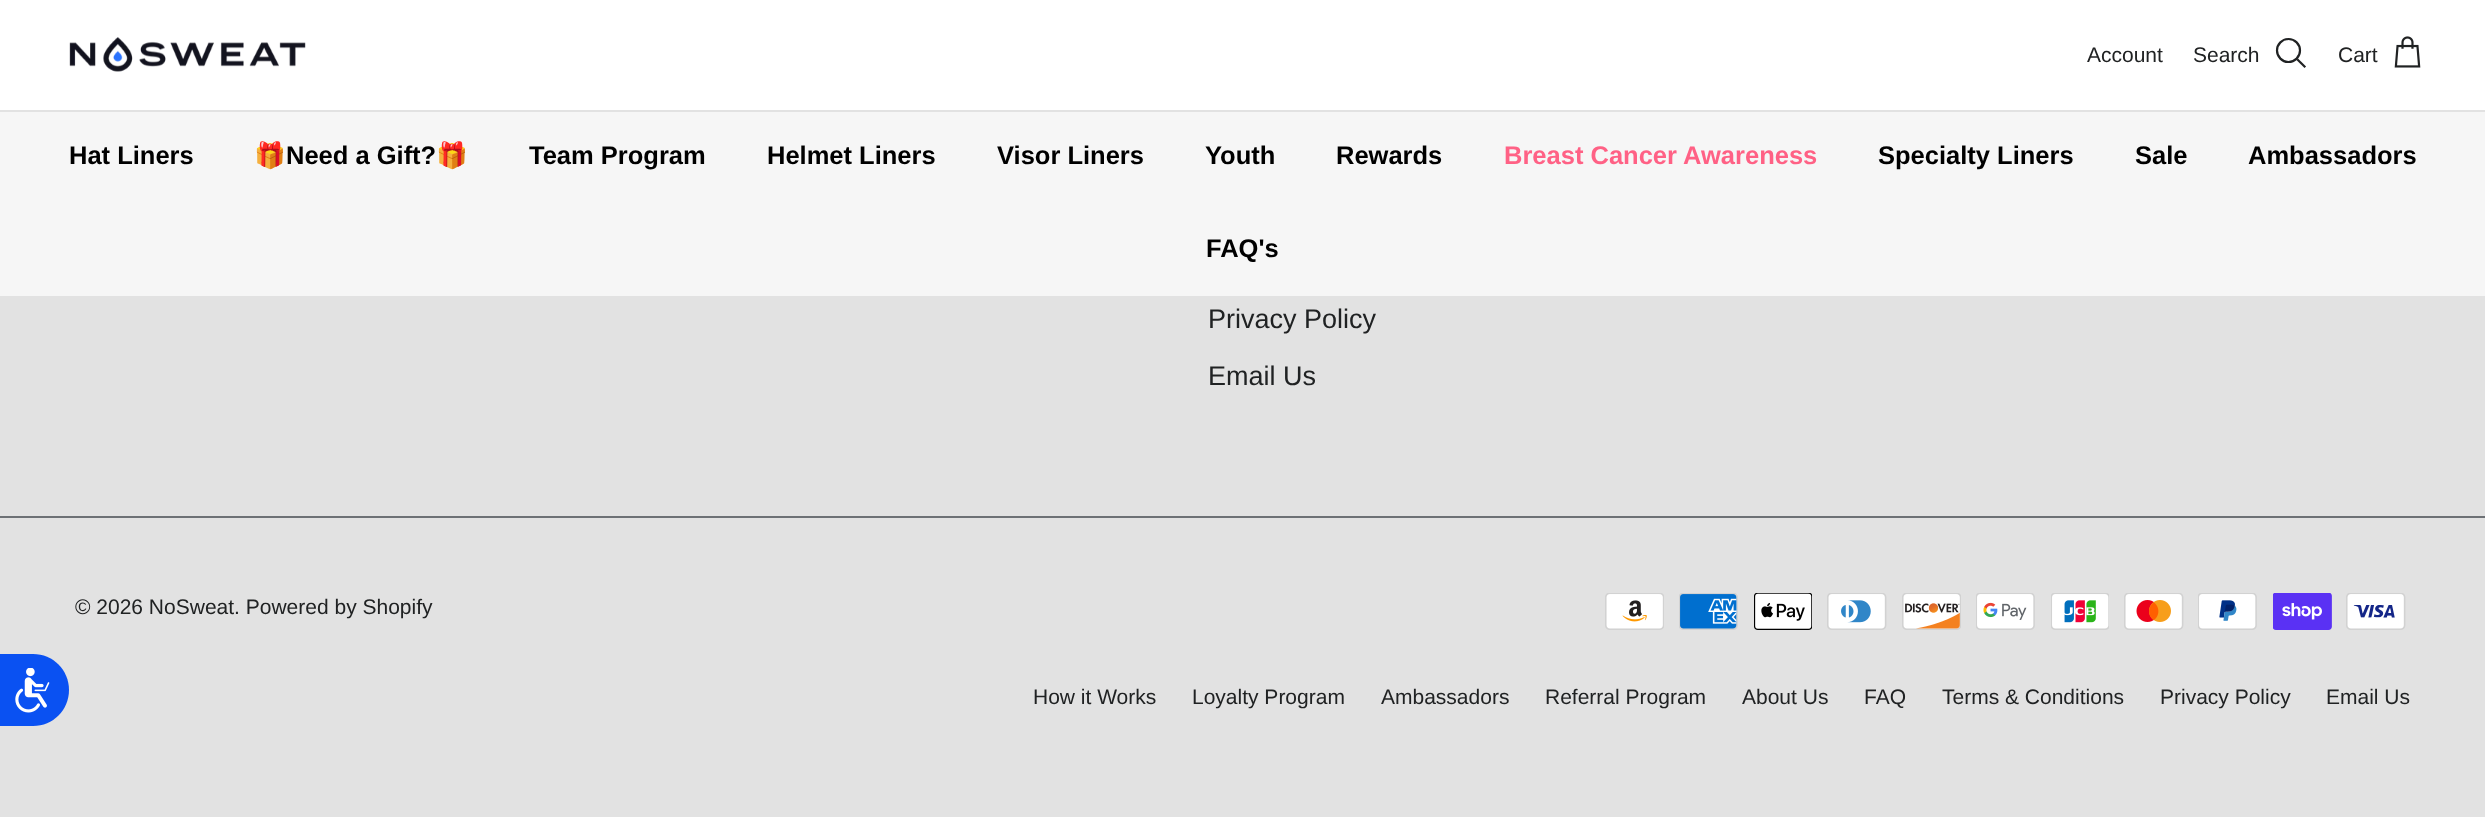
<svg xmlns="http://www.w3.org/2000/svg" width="2485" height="817">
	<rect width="100%" height="100%" fill="#E2E2E2" />
	<rect x="0" y="0" width="2485" height="110" fill="#FFFFFF" />
	<image x="69" y="37" width="237" height="35" href="assets/img1.png" />
	<g font-family="Arimo" font-size="21" fill="#202223">
		<text x="2087" y="62">Account</text>
		<text x="2193" y="62">Search</text>
	</g>
	<circle cx="2288.5" cy="50.5" r="11.5" fill="none" stroke="#202223" stroke-width="2.2" />
	<path d="M2298 60L2304.5 66.5" fill="none" stroke="#202223" stroke-width="2.2" stroke-linecap="square" />
	<text x="2338" y="62" font-family="Arimo" font-size="21" fill="#202223">Cart</text>
	<image x="2394" y="36" width="27" height="32" href="assets/img2.png" />
	<rect x="0" y="112" width="2485" height="184" fill="#F6F6F6" />
	<text x="69" y="164" font-family="Arimo" font-size="25.5" font-weight="700" fill="#000000">Hat Liners</text>
	<text x="254" y="164" font-family="Noto Color Emoji" font-size="25.5" font-weight="700" fill="#000000">🎁</text>
	<text x="286" y="164" font-family="Arimo" font-size="25.5" font-weight="700" fill="#000000">Need a Gift?</text>
	<text x="436" y="164" font-family="Noto Color Emoji" font-size="25.5" font-weight="700" fill="#000000">🎁</text>
	<g font-family="Arimo" font-size="25.5" font-weight="700" fill="#000000">
		<text x="529" y="164">Team Program</text>
		<text x="767" y="164">Helmet Liners</text>
		<text x="997" y="164">Visor Liners</text>
		<text x="1205" y="164">Youth</text>
		<text x="1336" y="164">Rewards</text>
	</g>
	<text x="1504" y="164" font-family="Arimo" font-size="25.5" font-weight="700" fill="#FF6185">Breast Cancer Awareness</text>
	<g font-family="Arimo" font-size="25.5" font-weight="700" fill="#000000">
		<text x="1878" y="164">Specialty Liners</text>
		<text x="2135" y="164">Sale</text>
		<text x="2248" y="164">Ambassadors</text>
		<text x="1206" y="257">FAQ's</text>
	</g>
	<path d="M0 654H33C53 654 69 670 69 690C69 710 53 726 33 726H0Z" fill="#0A51F2" />
	<image x="15" y="668" width="35" height="45" href="assets/img3.png" />
	<g font-family="Arimo" font-size="27" fill="#202223">
		<text x="1208" y="328">Privacy Policy</text>
		<text x="1208" y="385">Email Us</text>
	</g>
	<rect x="0" y="516" width="2485" height="2" fill="#6D7175" />
	<text x="75" y="614" font-family="Arimo" font-size="21" fill="#202223">© 2026 NoSweat. Powered by Shopify</text>
	<image x="1605" y="593" width="59" height="37" href="assets/img4.png" />
	<image x="1679" y="593" width="59" height="37" href="assets/img5.png" />
	<image x="1754" y="593" width="58" height="37" href="assets/img6.png" />
	<image x="1827" y="593" width="60" height="37" href="assets/img7.png" />
	<image x="1902" y="593" width="59" height="37" href="assets/img8.png" />
	<image x="1976" y="593" width="59" height="37" href="assets/img9.png" />
	<image x="2051" y="593" width="58" height="37" href="assets/img10.png" />
	<image x="2124" y="593" width="60" height="37" href="assets/img11.png" />
	<image x="2198" y="593" width="59" height="37" href="assets/img12.png" />
	<image x="2273" y="593" width="59" height="37" href="assets/img13.png" />
	<image x="2346" y="593" width="60" height="37" href="assets/img14.png" />
	<g font-family="Arimo" font-size="21" fill="#202223">
		<text x="1033" y="704">How it Works</text>
		<text x="1192" y="704">Loyalty Program</text>
		<text x="1381" y="704">Ambassadors</text>
		<text x="1545" y="704">Referral Program</text>
		<text x="1742" y="704">About Us</text>
		<text x="1864" y="704">FAQ</text>
		<text x="1942" y="704">Terms &amp; Conditions</text>
		<text x="2160" y="704">Privacy Policy</text>
		<text x="2326" y="704">Email Us</text>
	</g>
</svg>
